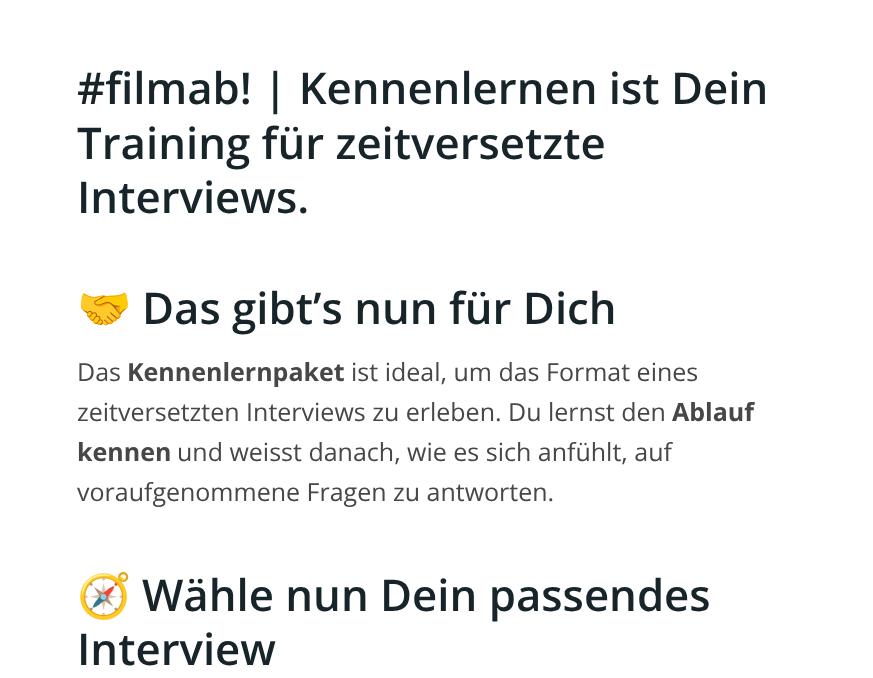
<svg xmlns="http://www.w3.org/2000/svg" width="873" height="678">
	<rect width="100%" height="100%" fill="#FFFFFF" />
	<g font-family="Open Sans" font-size="43.75" font-weight="600" fill="#17252A">
		<text x="77" y="104">#filmab! | Kennenlernen ist Dein</text>
		<text x="77" y="159">Training für zeitversetzte</text>
		<text x="77" y="213">Interviews.</text>
	</g>
	<text x="77" y="324" font-family="Noto Color Emoji" font-size="43.75" font-weight="700" fill="#17252A">🤝</text>
	<text x="142" y="324" font-family="Open Sans" font-size="43.75" font-weight="600" fill="#17252A">Das gibt’s nun für Dich</text>
	<text x="77" y="381" font-family="Open Sans" font-size="25" fill="#474747">Das</text>
	<text x="127" y="381" font-family="Open Sans" font-size="25" font-weight="700" fill="#474747">Kennenlernpaket</text>
	<g font-family="Open Sans" font-size="25" fill="#474747">
		<text x="351" y="381">ist ideal, um das Format eines</text>
		<text x="77" y="421">zeitversetzten Interviews zu erleben. Du lernst den</text>
	</g>
	<g font-family="Open Sans" font-size="25" font-weight="700" fill="#474747">
		<text x="672" y="421">Ablauf</text>
		<text x="77" y="461">kennen</text>
	</g>
	<g font-family="Open Sans" font-size="25" fill="#474747">
		<text x="177" y="461">und weisst danach, wie es sich anfühlt, auf</text>
		<text x="77" y="501">voraufgenommene Fragen zu antworten.</text>
	</g>
	<text x="77" y="611" font-family="Noto Color Emoji" font-size="43.75" font-weight="700" fill="#17252A">🧭</text>
	<g font-family="Open Sans" font-size="43.75" font-weight="600" fill="#17252A">
		<text x="142" y="611">Wähle nun Dein passendes</text>
		<text x="77" y="665">Interview</text>
	</g>
</svg>
